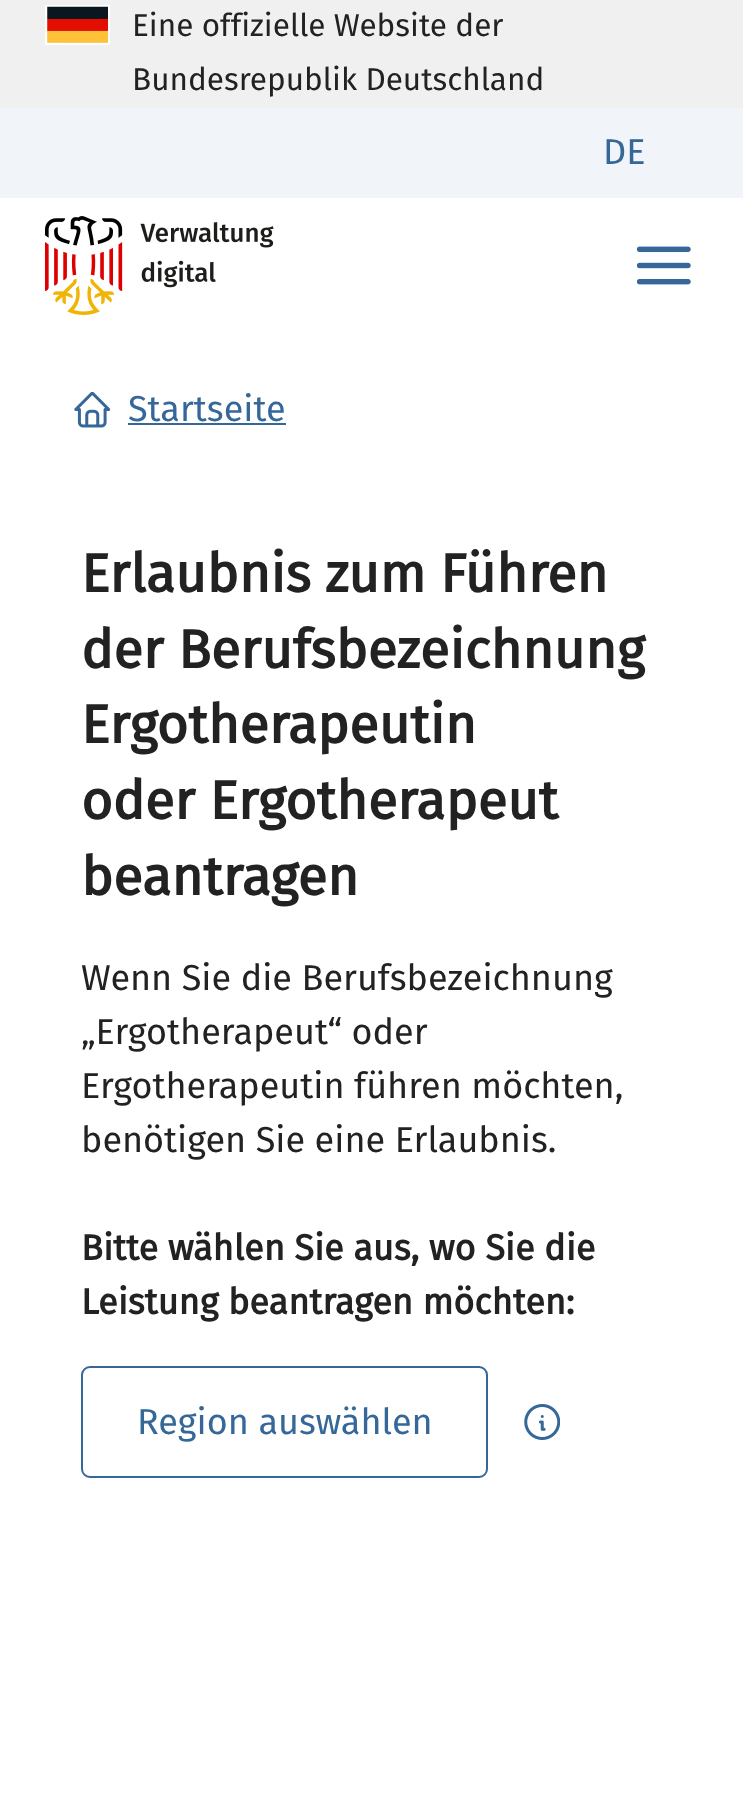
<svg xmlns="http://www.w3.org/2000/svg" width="743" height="1808">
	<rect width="100%" height="100%" fill="#FFFFFF" />
	<rect x="0" y="0" width="743" height="108" fill="#F0F0F0" />
	<rect x="46" y="6" width="63" height="38" fill="none" stroke="#FFFFFF" stroke-width="2" />
	<image x="47" y="6" width="61" height="37" href="assets/img1.png" />
	<g font-family="Fira Sans" font-size="31.5" fill="#222222">
		<text x="132" y="36">Eine offizielle Website der</text>
		<text x="132" y="90">Bundesrepublik Deutschland</text>
	</g>
	<rect x="0" y="108" width="743" height="90" fill="#F1F4F8" />
	<text x="603" y="164" font-family="Fira Sans" font-size="36" fill="#356799">DE</text>
	<image x="45" y="216" width="229" height="99" href="assets/img2.png" />
	<image x="637" y="246" width="54" height="39" href="assets/img3.png" />
	<image x="74" y="392" width="36" height="36" href="assets/img4.png" />
	<text x="128" y="421" font-family="Fira Sans" font-size="36" fill="#356799">Startseite</text>
	<rect x="128" y="423" width="158" height="2" fill="#356799" />
	<g font-family="Fira Sans" font-size="54" font-weight="700" fill="#222222">
		<text x="81" y="592">Erlaubnis zum Führen</text>
		<text x="81" y="668">der Berufsbezeichnung</text>
		<text x="81" y="743">Ergotherapeutin</text>
		<text x="81" y="819">oder Ergotherapeut</text>
		<text x="81" y="895">beantragen</text>
	</g>
	<g font-family="Fira Sans" font-size="36" fill="#222222">
		<text x="81" y="990">Wenn Sie die Berufsbezeichnung</text>
		<text x="81" y="1044">„Ergotherapeut“ oder</text>
		<text x="81" y="1098">Ergotherapeutin führen möchten,</text>
		<text x="81" y="1152">benötigen Sie eine Erlaubnis.</text>
	</g>
	<g font-family="Fira Sans" font-size="36" font-weight="700" fill="#222222">
		<text x="81" y="1260">Bitte wählen Sie aus, wo Sie die</text>
		<text x="81" y="1314">Leistung beantragen möchten:</text>
	</g>
	<rect x="82" y="1367" width="405" height="110" rx="8" fill="none" stroke="#356799" stroke-width="2" />
	<text x="137" y="1434" font-family="Fira Sans" font-size="36" fill="#356799">Region auswählen</text>
	<image x="524" y="1404" width="36" height="36" href="assets/img5.png" />
</svg>
